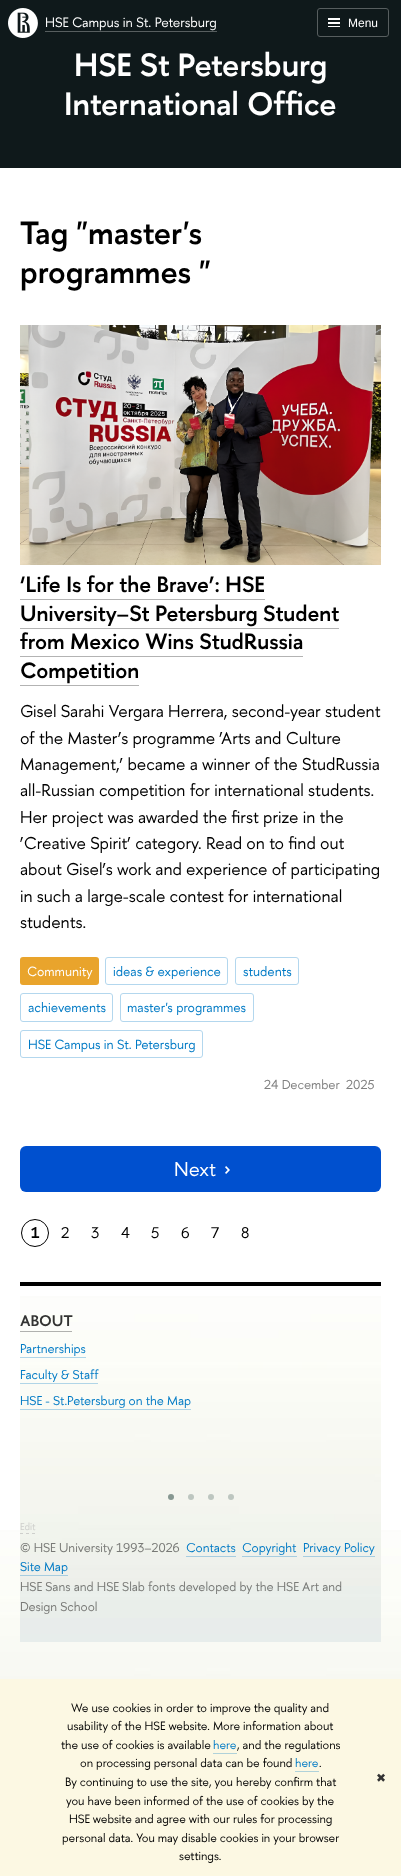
<svg xmlns="http://www.w3.org/2000/svg" width="401" height="1876">
	<rect width="100%" height="100%" fill="#FFFFFF" />
	<image x="0" y="1530" width="401" height="149" href="assets/img1.png" />
	<rect x="0" y="0" width="401" height="168" fill="#0F191B" />
	<image x="8" y="8" width="30" height="30" href="assets/img2.png" />
	<text x="45" y="27" font-family="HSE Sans" font-size="13.6" fill="#FFFFFF">HSE Campus in St. Petersburg</text>
	<rect x="45" y="31" width="172" height="1" fill="#575E5F" />
	<rect x="317.5" y="8.5" width="71" height="28" rx="2.5" fill="none" stroke="#575E5F" />
	<rect x="328" y="18" width="12" height="2" fill="#FFFFFF" />
	<rect x="328" y="22" width="12" height="2" fill="#FFFFFF" />
	<rect x="328" y="26" width="12" height="1" fill="#FFFFFF" />
	<text x="348" y="27" font-family="Liberation Sans" font-size="12" fill="#FFFFFF">Menu</text>
	<g font-family="HSE Sans" font-size="32.25" font-weight="600" fill="#FFFFFF">
		<text x="74" y="76">HSE St Petersburg</text>
		<text x="64" y="115">International Office</text>
	</g>
	<path d="M30 188H381V1642H20V198C20 192.5 24.5 188 30 188Z" fill="#FFFFFF" />
	<image x="20" y="1296" width="361" height="346" href="assets/img3.png" />
	<g font-family="HSE Sans" font-size="32.25" font-weight="600" fill="#000000">
		<text x="20" y="244">Tag "master's</text>
		<text x="20" y="283">programmes "</text>
	</g>
	<image x="20" y="325" width="361" height="240" href="assets/img4.png" />
	<text x="20" y="592" font-family="HSE Sans" font-size="22.1" font-weight="600" fill="#000000">‘Life Is for the Brave’: HSE</text>
	<rect x="20" y="599" width="245" height="1" fill="#B3B3B3" />
	<g font-family="HSE Sans" font-size="22.1" font-weight="600" fill="#000000">
		<text x="20" y="621">University–St Petersburg Student</text>
		<text x="20" y="649">from Mexico Wins StudRussia</text>
	</g>
	<rect x="20" y="628" width="319" height="1" fill="#B3B3B3" />
	<rect x="20" y="656" width="283" height="1" fill="#B3B3B3" />
	<text x="20" y="678" font-family="HSE Sans" font-size="22.1" font-weight="600" fill="#000000">Competition</text>
	<rect x="20" y="685" width="119" height="1" fill="#B3B3B3" />
	<g font-family="HSE Sans" font-size="17" fill="#000000">
		<text x="20" y="717">Gisel Sarahi Vergara Herrera, second-year student</text>
		<text x="20" y="744">of the Master’s programme ‘Arts and Culture</text>
		<text x="20" y="770">Management,’ became a winner of the StudRussia</text>
		<text x="20" y="796">all-Russian competition for international students.</text>
		<text x="20" y="823">Her project was awarded the first prize in the</text>
		<text x="20" y="849">‘Creative Spirit’ category. Read on to find out</text>
		<text x="20" y="875">about Gisel’s work and experience of participating</text>
		<text x="20" y="902">in such a large-scale contest for international</text>
		<text x="20" y="928">students.</text>
	</g>
	<rect x="20" y="957" width="79" height="28" rx="3" fill="#E9A42C" />
	<text x="27" y="976" font-family="HSE Sans" font-size="13.25" fill="#FFFFFF">Community</text>
	<rect x="105.5" y="957.5" width="122" height="27" rx="2.5" fill="none" stroke="#B3D7EE" />
	<text x="113" y="976" font-family="HSE Sans" font-size="13.25" fill="#007AC5">ideas &amp; experience</text>
	<rect x="235.5" y="957.5" width="63" height="27" rx="2.5" fill="none" stroke="#B3D7EE" />
	<text x="243" y="976" font-family="HSE Sans" font-size="13.25" fill="#007AC5">students</text>
	<rect x="20.5" y="993.5" width="92" height="28" rx="2.5" fill="none" stroke="#B3D7EE" />
	<text x="28" y="1012" font-family="HSE Sans" font-size="13.25" fill="#007AC5">achievements</text>
	<rect x="120.5" y="993.5" width="133" height="28" rx="2.5" fill="none" stroke="#B3D7EE" />
	<text x="127" y="1012" font-family="HSE Sans" font-size="13.25" fill="#007AC5">master's programmes</text>
	<rect x="20.5" y="1030.5" width="182" height="27" rx="2.5" fill="none" stroke="#B3D7EE" />
	<text x="28" y="1049" font-family="HSE Sans" font-size="13.25" fill="#007AC5">HSE Campus in St. Petersburg</text>
	<g font-family="HSE Sans" font-size="13" fill="#808080">
		<text x="264" y="1089">24 December</text>
		<text x="346" y="1089">2025</text>
	</g>
	<rect x="20" y="1146" width="361" height="46" rx="6" fill="#0050CF" />
	<text x="174" y="1176" font-family="HSE Sans" font-size="20" fill="#FFFFFF">Next</text>
	<image x="225" y="1166" width="5" height="8" href="assets/img5.png" />
	<circle cx="35" cy="1233" r="13.5" fill="none" stroke="#000000" />
	<text x="31" y="1238" font-family="HSE Sans" font-size="15.5" font-weight="600" fill="#000000">1</text>
	<g font-family="HSE Sans" font-size="15.5" fill="#000000">
		<text x="61" y="1238">2</text>
		<text x="91" y="1238">3</text>
		<text x="121" y="1238">4</text>
		<text x="151" y="1238">5</text>
		<text x="181" y="1238">6</text>
		<text x="211" y="1238">7</text>
		<text x="241" y="1238">8</text>
	</g>
	<rect x="20" y="1282" width="361" height="4" fill="#000000" />
	<text x="20" y="1326" font-family="HSE Sans" font-size="15.5" font-weight="600" fill="#333333">ABOUT</text>
	<rect x="20" y="1331" width="52" height="1" fill="#B0B1AE" />
	<text x="20" y="1353" font-family="HSE Sans" font-size="12.75" fill="#007AC5">Partnerships</text>
	<rect x="20" y="1357" width="66" height="1" fill="#B0D6E9" />
	<text x="20" y="1379" font-family="HSE Sans" font-size="12.75" fill="#007AC5">Faculty &amp; Staff</text>
	<rect x="20" y="1383" width="78" height="1" fill="#B0D5E7" />
	<text x="20" y="1405" font-family="HSE Sans" font-size="12.75" fill="#007AC5">HSE - St.Petersburg on the Map</text>
	<rect x="20" y="1409" width="171" height="1" fill="#AED4E6" />
	<circle cx="171" cy="1497" r="3" fill="#869791" />
	<circle cx="191" cy="1497" r="3" fill="#BDC6C0" />
	<circle cx="211" cy="1497" r="3" fill="#BDC6C0" />
	<circle cx="231" cy="1497" r="3" fill="#BDC6C0" />
	<text x="20" y="1530" font-family="HSE Sans" font-size="10" fill="#CECFCC">Edit</text>
	<path d="M20 1533.5H23M26 1533.5H29M32 1533.5H35" fill="none" stroke="#CECFCC" />
	<text x="20" y="1552" font-family="HSE Sans" font-size="12.75" fill="#787976">© HSE University 1993–2026</text>
	<text x="186" y="1552" font-family="HSE Sans" font-size="12.75" fill="#007AC5">Contacts</text>
	<rect x="186" y="1556" width="50" height="1" fill="#A7CDE0" />
	<text x="242" y="1552" font-family="HSE Sans" font-size="12.75" fill="#007AC5">Copyright</text>
	<rect x="242" y="1556" width="55" height="1" fill="#A7CDE0" />
	<text x="303" y="1552" font-family="HSE Sans" font-size="12.75" fill="#007AC5">Privacy Policy</text>
	<rect x="303" y="1556" width="72" height="1" fill="#A7CDE0" />
	<text x="20" y="1571" font-family="HSE Sans" font-size="12.75" fill="#007AC5">Site Map</text>
	<rect x="20" y="1575" width="48" height="1" fill="#A7CDE0" />
	<g font-family="HSE Sans" font-size="12.75" fill="#787976">
		<text x="20" y="1591">HSE Sans and HSE Slab fonts developed by the HSE Art and</text>
		<text x="20" y="1611">Design School</text>
	</g>
	<rect x="0" y="1679" width="401" height="197" fill="#FCF8E3" />
	<g font-family="HSE Sans" font-size="12" fill="#000000">
		<text x="71" y="1712">We use cookies in order to improve the quality and</text>
		<text x="67" y="1730">usability of the HSE website. More information about</text>
		<text x="61" y="1749">the use of cookies is available</text>
	</g>
	<text x="213" y="1749" font-family="HSE Sans" font-size="12" fill="#007AC5">here</text>
	<rect x="213" y="1753" width="24" height="1" fill="#B0D2DA" />
	<g font-family="HSE Sans" font-size="12" fill="#000000">
		<text x="237" y="1749">, and the regulations</text>
		<text x="80" y="1767">on processing personal data can be found</text>
	</g>
	<text x="295" y="1767" font-family="HSE Sans" font-size="12" fill="#007AC5">here</text>
	<rect x="295" y="1771" width="24" height="1" fill="#B0D2DA" />
	<g font-family="HSE Sans" font-size="12" fill="#000000">
		<text x="319" y="1767">.</text>
		<text x="65" y="1786">By continuing to use the site, you hereby confirm that</text>
		<text x="66" y="1805">you have been informed of the use of cookies by the</text>
		<text x="69" y="1823">HSE website and agree with our rules for processing</text>
		<text x="62" y="1842">personal data. You may disable cookies in your browser</text>
		<text x="179" y="1860">settings.</text>
	</g>
	<text x="376" y="1782" font-family="DejaVu Sans" font-size="12" fill="#333333">✖</text>
</svg>
